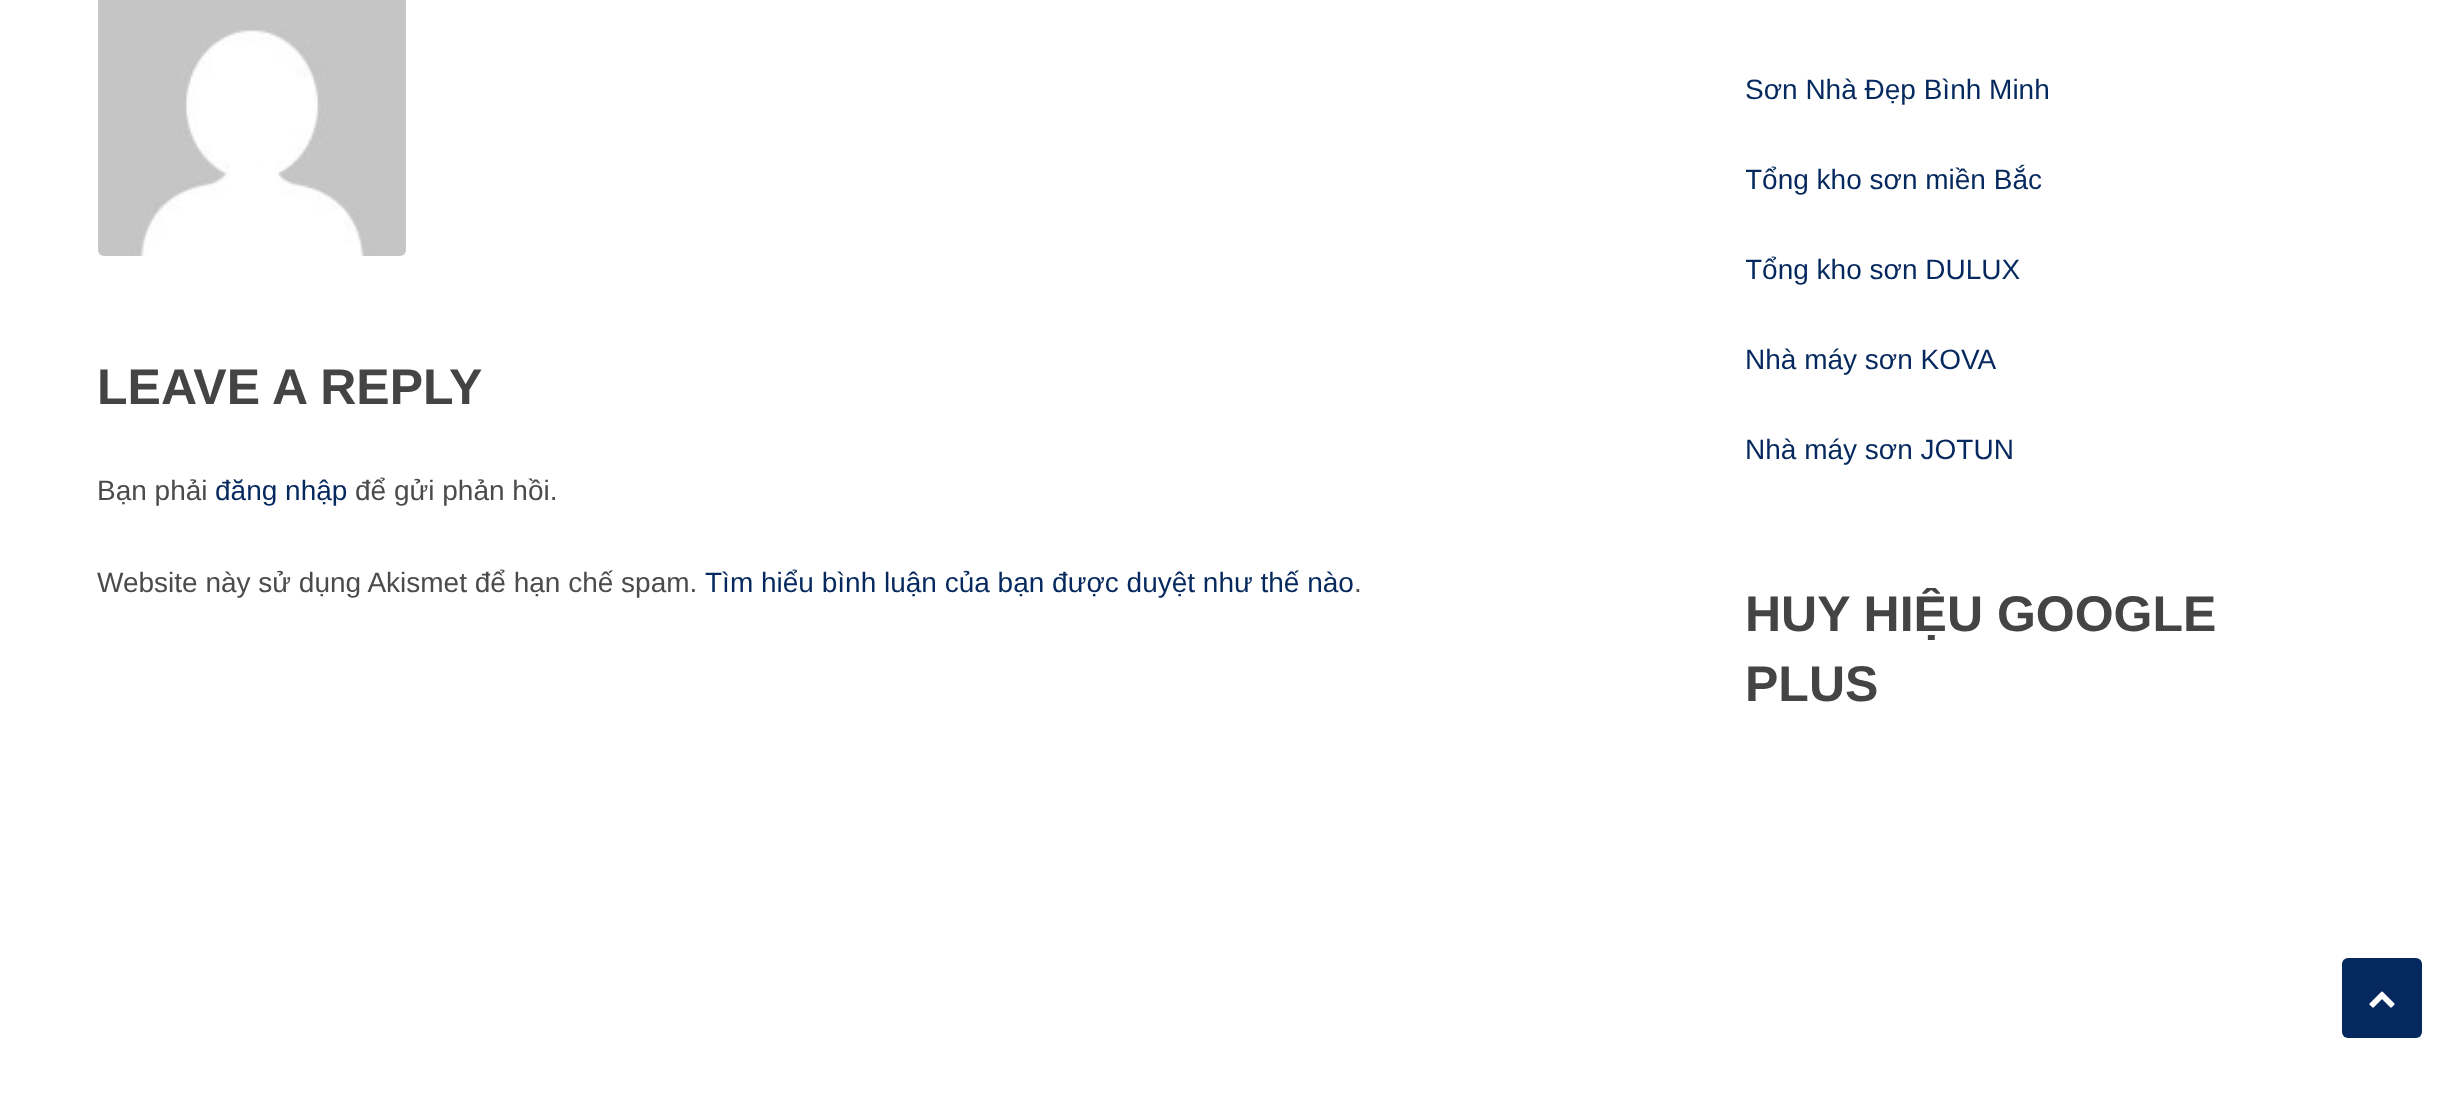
<svg xmlns="http://www.w3.org/2000/svg" width="2441" height="1100">
	<defs>
		<clipPath id="clip1"><rect x="1746" y="0" width="600" height="518" /></clipPath>
		<clipPath id="clip2"><rect x="1746" y="588" width="600" height="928" /></clipPath>
	</defs>
	<rect width="100%" height="100%" fill="#FFFFFF" />
	<image x="98" y="0" width="308" height="256" href="assets/img1.png" />
	<text x="97" y="404" font-family="Liberation Sans" font-size="50" font-weight="700" fill="#444444">LEAVE A REPLY</text>
	<text x="97" y="500" font-family="Liberation Sans" font-size="28" fill="#4B4B4B">Bạn phải</text>
	<text x="215" y="500" font-family="Liberation Sans" font-size="28" fill="#05295E">đăng nhập</text>
	<g font-family="Liberation Sans" font-size="28" fill="#4B4B4B">
		<text x="355" y="500">để gửi phản hồi.</text>
		<text x="97" y="592">Website này sử dụng Akismet để hạn chế spam.</text>
	</g>
	<text x="705" y="592" font-family="Liberation Sans" font-size="28" fill="#05295E">Tìm hiểu bình luận của bạn được duyệt như thế nào</text>
	<text x="1354" y="592" font-family="Liberation Sans" font-size="28" fill="#4B4B4B">.</text>
	<text x="1745" y="99" font-family="Liberation Sans" font-size="28" fill="#05295E">Sơn Nhà Đẹp Bình Minh</text>
	<g clip-path="url(#clip1)">
		<g font-family="Liberation Sans" font-size="28" fill="#05295E">
			<text x="1745" y="189">Tổng kho sơn miền Bắc</text>
			<text x="1745" y="279">Tổng kho sơn DULUX</text>
		</g>
	</g>
	<g font-family="Liberation Sans" font-size="28" fill="#05295E">
		<text x="1745" y="369">Nhà máy sơn KOVA</text>
		<text x="1745" y="459">Nhà máy sơn JOTUN</text>
	</g>
	<g clip-path="url(#clip2)">
		<text x="1745" y="631" font-family="Liberation Sans" font-size="50" font-weight="700" fill="#444444">HUY HIỆU GOOGLE</text>
	</g>
	<text x="1745" y="701" font-family="Liberation Sans" font-size="50" font-weight="700" fill="#444444">PLUS</text>
	<rect x="2342" y="958" width="80" height="80" rx="6" fill="#05295E" />
	<image x="2369" y="991" width="26" height="17" href="assets/img2.png" />
</svg>
